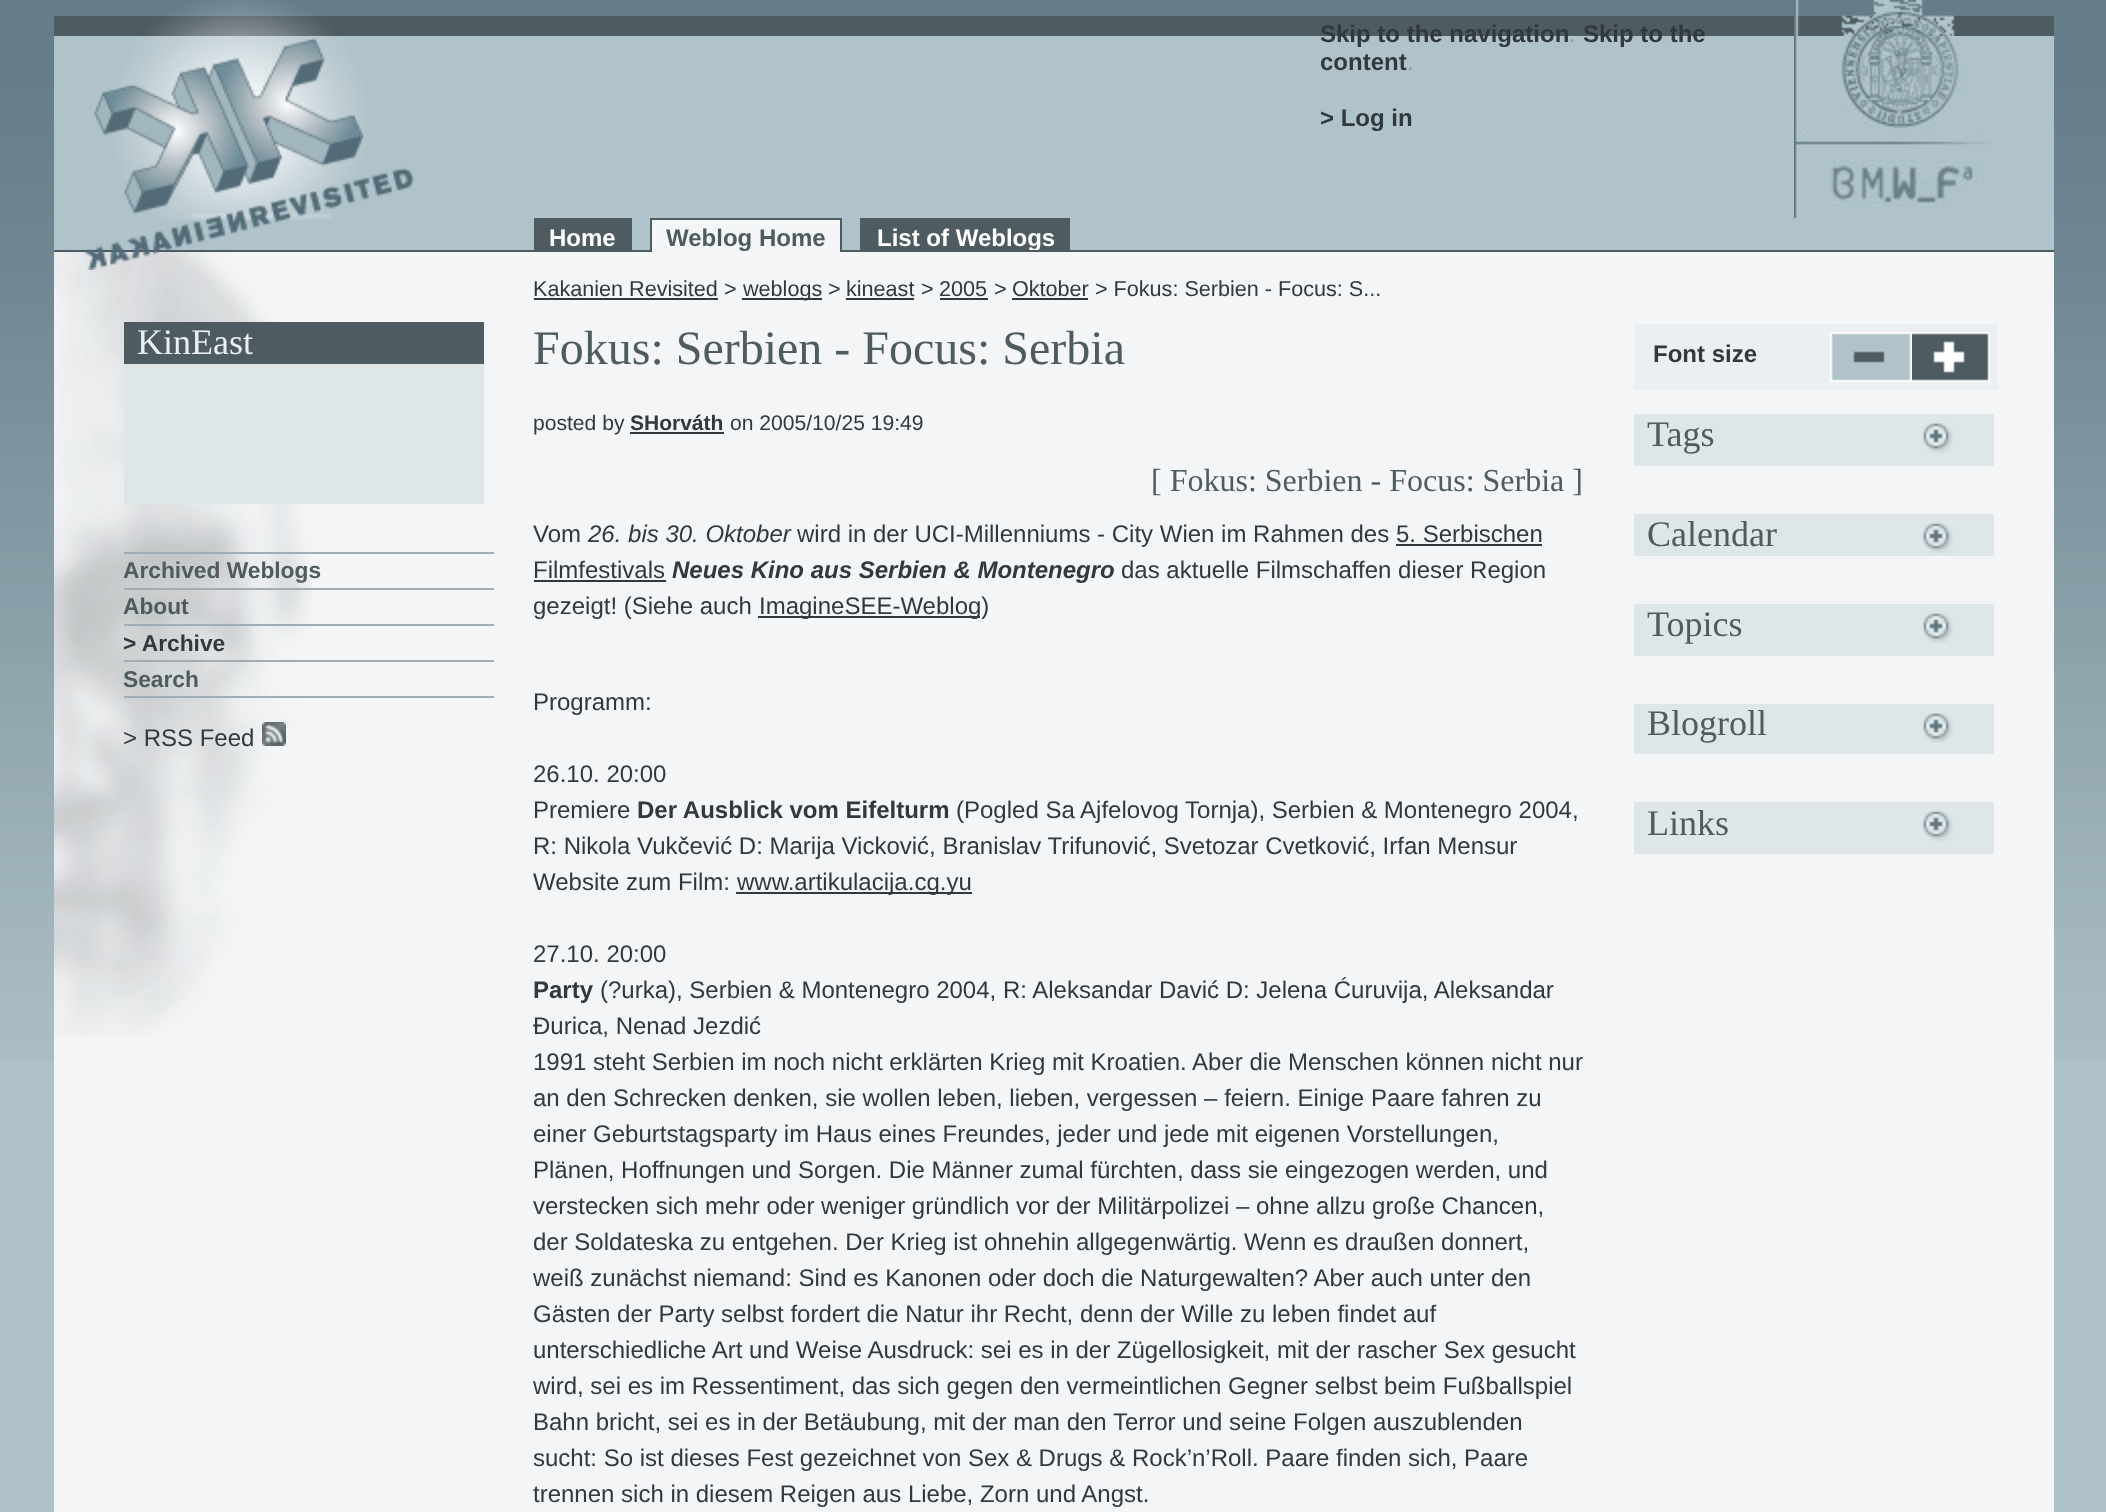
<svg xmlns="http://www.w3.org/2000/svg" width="2106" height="1512">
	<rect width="100%" height="100%" fill="#AFC2C9" />
	<image x="0" y="0" width="2106" height="1061" href="assets/img1.png" />
	<rect x="54" y="36" width="2000" height="214" fill="#B1C3CA" />
	<rect x="54" y="16" width="2000" height="20" fill="#4E5B61" />
	<rect x="534" y="218" width="98" height="2" fill="#4E5B61" />
	<rect x="630" y="218" width="2" height="34" fill="#4E5B61" />
	<rect x="534" y="218" width="2" height="34" fill="#4E5B61" />
	<rect x="862" y="220" width="206" height="30" fill="#4E5B61" />
	<text x="877" y="246" font-family="Liberation Sans" font-size="24" font-weight="700" fill="#FFFFFF">List of Weblogs</text>
	<rect x="860" y="218" width="210" height="2" fill="#4E5B61" />
	<rect x="1068" y="218" width="2" height="34" fill="#4E5B61" />
	<rect x="860" y="218" width="2" height="34" fill="#4E5B61" />
	<rect x="54" y="250" width="2000" height="2" fill="#4E5B61" />
	<rect x="54" y="252" width="2000" height="1260" fill="#F3F5F6" />
	<image x="54" y="252" width="258" height="785" href="assets/img4.png" />
	<image x="84" y="0" width="330" height="270" href="assets/img2.png" />
	<text x="1320" y="42" font-family="Liberation Sans" font-size="24" font-weight="700" fill="#31383E">Skip to the navigation</text>
	<text x="1569" y="42" font-family="Liberation Sans" font-size="24" fill="#999999">.</text>
	<g font-family="Liberation Sans" font-size="24" font-weight="700" fill="#31383E">
		<text x="1583" y="42">Skip to the</text>
		<text x="1320" y="70">content</text>
	</g>
	<text x="1407" y="70" font-family="Liberation Sans" font-size="24" fill="#999999">.</text>
	<text x="1320" y="126" font-family="Liberation Sans" font-size="24" font-weight="700" fill="#31383E">&gt; Log in</text>
	<image x="1794" y="0" width="201" height="218" href="assets/img3.png" />
	<rect x="536" y="220" width="94" height="30" fill="#4E5B61" />
	<text x="549" y="246" font-family="Liberation Sans" font-size="24" font-weight="700" fill="#FFFFFF">Home</text>
	<rect x="652" y="220" width="188" height="32" fill="#F3F5F6" />
	<text x="666" y="246" font-family="Liberation Sans" font-size="24" font-weight="700" fill="#4E5B61">Weblog Home</text>
	<rect x="650" y="218" width="192" height="2" fill="#4E5B61" />
	<rect x="840" y="218" width="2" height="34" fill="#4E5B61" />
	<rect x="650" y="218" width="2" height="34" fill="#4E5B61" />
	<rect x="124" y="322" width="360" height="42" fill="#4E5B61" />
	<text x="137" y="354" font-family="Liberation Serif" font-size="36" fill="#EBEFF1">KinEast</text>
	<rect x="124" y="364" width="360" height="140" fill="#DEE6E8" />
	<rect x="124" y="552" width="370" height="2" fill="#9EAEB4" />
	<rect x="124" y="588" width="370" height="2" fill="#9EAEB4" />
	<text x="123" y="578" font-family="Liberation Sans" font-size="22.75" font-weight="700" fill="#4E5B61">Archived Weblogs</text>
	<rect x="124" y="624" width="370" height="2" fill="#9EAEB4" />
	<text x="123" y="614" font-family="Liberation Sans" font-size="22.75" font-weight="700" fill="#4E5B61">About</text>
	<rect x="124" y="660" width="370" height="2" fill="#9EAEB4" />
	<text x="123" y="651" font-family="Liberation Sans" font-size="22.75" font-weight="700" fill="#31383E">&gt; Archive</text>
	<rect x="124" y="696" width="370" height="2" fill="#9EAEB4" />
	<text x="123" y="687" font-family="Liberation Sans" font-size="22.75" font-weight="700" fill="#4E5B61">Search</text>
	<text x="123" y="746" font-family="Liberation Sans" font-size="24" fill="#31383E">&gt; RSS Feed</text>
	<image x="262" y="722" width="24" height="24" href="assets/img5.png" />
	<text x="533" y="296" font-family="Liberation Sans" font-size="21.6" fill="#31383E">Kakanien Revisited</text>
	<rect x="534" y="298" width="184" height="2" fill="#31383E" />
	<text x="724" y="296" font-family="Liberation Sans" font-size="21.6" fill="#31383E">&gt;</text>
	<rect x="742" y="298" width="80" height="2" fill="#31383E" />
	<g font-family="Liberation Sans" font-size="21.6" fill="#31383E">
		<text x="743" y="296">weblogs</text>
		<text x="828" y="296">&gt;</text>
		<text x="846" y="296">kineast</text>
	</g>
	<rect x="846" y="298" width="68" height="2" fill="#31383E" />
	<g font-family="Liberation Sans" font-size="21.6" fill="#31383E">
		<text x="921" y="296">&gt;</text>
		<text x="939" y="296">2005</text>
	</g>
	<rect x="940" y="298" width="48" height="2" fill="#31383E" />
	<g font-family="Liberation Sans" font-size="21.6" fill="#31383E">
		<text x="994" y="296">&gt;</text>
		<text x="1012" y="296">Oktober</text>
	</g>
	<rect x="1012" y="298" width="76" height="2" fill="#31383E" />
	<text x="1095" y="296" font-family="Liberation Sans" font-size="21.6" fill="#31383E">&gt; Fokus: Serbien - Focus: S...</text>
	<text x="533" y="364" font-family="Liberation Serif" font-size="48" fill="#4E5B61">Fokus: Serbien - Focus: Serbia</text>
	<text x="533" y="430" font-family="Liberation Sans" font-size="21.1" fill="#31383E">posted by</text>
	<text x="630" y="430" font-family="Liberation Sans" font-size="21" font-weight="700" fill="#31383E">SHorváth</text>
	<rect x="630" y="432" width="94" height="2" fill="#31383E" />
	<text x="730" y="430" font-family="Liberation Sans" font-size="21.1" fill="#31383E">on 2005/10/25 19:49</text>
	<text x="1151" y="491" font-family="Liberation Serif" font-size="32" fill="#4E5B61">[ Fokus: Serbien - Focus: Serbia ]</text>
	<text x="533" y="542" font-family="Liberation Sans" font-size="24" fill="#31383E">Vom</text>
	<text x="588" y="542" font-family="Liberation Sans" font-size="24" font-style="italic" fill="#31383E">26. bis 30. Oktober</text>
	<g font-family="Liberation Sans" font-size="24" fill="#31383E">
		<text x="797" y="542">wird in der UCI-Millenniums - City Wien im Rahmen des</text>
		<text x="1396" y="542">5. Serbischen</text>
	</g>
	<rect x="1396" y="544" width="146" height="2" fill="#31383E" />
	<text x="533" y="578" font-family="Liberation Sans" font-size="24" fill="#31383E">Filmfestivals</text>
	<rect x="534" y="580" width="132" height="2" fill="#31383E" />
	<text x="672" y="578" font-family="Liberation Sans" font-size="24" font-weight="700" font-style="italic" fill="#31383E">Neues Kino aus Serbien &amp; Montenegro</text>
	<g font-family="Liberation Sans" font-size="24" fill="#31383E">
		<text x="1121" y="578">das aktuelle Filmschaffen dieser Region</text>
		<text x="533" y="614">gezeigt! (Siehe auch</text>
	</g>
	<rect x="758" y="616" width="222" height="2" fill="#31383E" />
	<g font-family="Liberation Sans" font-size="24" fill="#31383E">
		<text x="759" y="614">ImagineSEE-Weblog)</text>
		<text x="533" y="710">Programm:</text>
		<text x="533" y="782">26.10. 20:00</text>
		<text x="533" y="818">Premiere</text>
	</g>
	<text x="637" y="818" font-family="Liberation Sans" font-size="24" font-weight="700" fill="#31383E">Der Ausblick vom Eifelturm</text>
	<g font-family="Liberation Sans" font-size="24" fill="#31383E">
		<text x="956" y="818">(Pogled Sa Ajfelovog Tornja), Serbien &amp; Montenegro 2004,</text>
		<text x="533" y="854">R: Nikola Vukčević D: Marija Vicković, Branislav Trifunović, Svetozar Cvetković, Irfan Mensur</text>
		<text x="533" y="890">Website zum Film:</text>
	</g>
	<rect x="736" y="892" width="236" height="2" fill="#31383E" />
	<g font-family="Liberation Sans" font-size="24" fill="#31383E">
		<text x="737" y="890">www.artikulacija.cg.yu</text>
		<text x="533" y="962">27.10. 20:00</text>
	</g>
	<text x="533" y="998" font-family="Liberation Sans" font-size="24" font-weight="700" fill="#31383E">Party</text>
	<g font-family="Liberation Sans" font-size="24" fill="#31383E">
		<text x="600" y="998">(?urka), Serbien &amp; Montenegro 2004, R: Aleksandar Davić D: Jelena Ćuruvija, Aleksandar</text>
		<text x="533" y="1034">Đurica, Nenad Jezdić</text>
		<text x="533" y="1070">1991 steht Serbien im noch nicht erklärten Krieg mit Kroatien. Aber die Menschen können nicht nur</text>
		<text x="533" y="1106">an den Schrecken denken, sie wollen leben, lieben, vergessen – feiern. Einige Paare fahren zu</text>
		<text x="533" y="1142">einer Geburtstagsparty im Haus eines Freundes, jeder und jede mit eigenen Vorstellungen,</text>
		<text x="533" y="1178">Plänen, Hoffnungen und Sorgen. Die Männer zumal fürchten, dass sie eingezogen werden, und</text>
		<text x="533" y="1214">verstecken sich mehr oder weniger gründlich vor der Militärpolizei – ohne allzu große Chancen,</text>
		<text x="533" y="1250">der Soldateska zu entgehen. Der Krieg ist ohnehin allgegenwärtig. Wenn es draußen donnert,</text>
		<text x="533" y="1286">weiß zunächst niemand: Sind es Kanonen oder doch die Naturgewalten? Aber auch unter den</text>
		<text x="533" y="1322">Gästen der Party selbst fordert die Natur ihr Recht, denn der Wille zu leben findet auf</text>
		<text x="533" y="1358">unterschiedliche Art und Weise Ausdruck: sei es in der Zügellosigkeit, mit der rascher Sex gesucht</text>
		<text x="533" y="1394">wird, sei es im Ressentiment, das sich gegen den vermeintlichen Gegner selbst beim Fußballspiel</text>
		<text x="533" y="1430">Bahn bricht, sei es in der Betäubung, mit der man den Terror und seine Folgen auszublenden</text>
		<text x="533" y="1466">sucht: So ist dieses Fest gezeichnet von Sex &amp; Drugs &amp; Rock’n’Roll. Paare finden sich, Paare</text>
		<text x="533" y="1502">trennen sich in diesem Reigen aus Liebe, Zorn und Angst.</text>
	</g>
	<rect x="1634" y="324" width="364" height="66" fill="#EBEFF1" />
	<text x="1653" y="362" font-family="Liberation Sans" font-size="24" font-weight="700" fill="#31383E">Font size</text>
	<image x="1830" y="332" width="82" height="50" href="assets/img6.png" />
	<image x="1912" y="332" width="78" height="50" href="assets/img7.png" />
	<rect x="1634" y="414" width="360" height="52" fill="#DEE6E8" />
	<text x="1647" y="446" font-family="Liberation Serif" font-size="36" fill="#4E5B61">Tags</text>
	<image x="1923" y="423" width="30" height="30" href="assets/img8.png" />
	<rect x="1634" y="514" width="360" height="42" fill="#DEE6E8" />
	<text x="1647" y="546" font-family="Liberation Serif" font-size="36" fill="#4E5B61">Calendar</text>
	<image x="1923" y="523" width="30" height="30" href="assets/img8.png" />
	<rect x="1634" y="604" width="360" height="52" fill="#DEE6E8" />
	<text x="1647" y="636" font-family="Liberation Serif" font-size="36" fill="#4E5B61">Topics</text>
	<image x="1923" y="613" width="30" height="30" href="assets/img8.png" />
	<rect x="1634" y="704" width="360" height="50" fill="#DEE6E8" />
	<text x="1647" y="735" font-family="Liberation Serif" font-size="36" fill="#4E5B61">Blogroll</text>
	<image x="1923" y="713" width="30" height="30" href="assets/img8.png" />
	<rect x="1634" y="802" width="360" height="52" fill="#DEE6E8" />
	<text x="1647" y="835" font-family="Liberation Serif" font-size="36" fill="#4E5B61">Links</text>
	<image x="1923" y="811" width="30" height="30" href="assets/img8.png" />
</svg>
